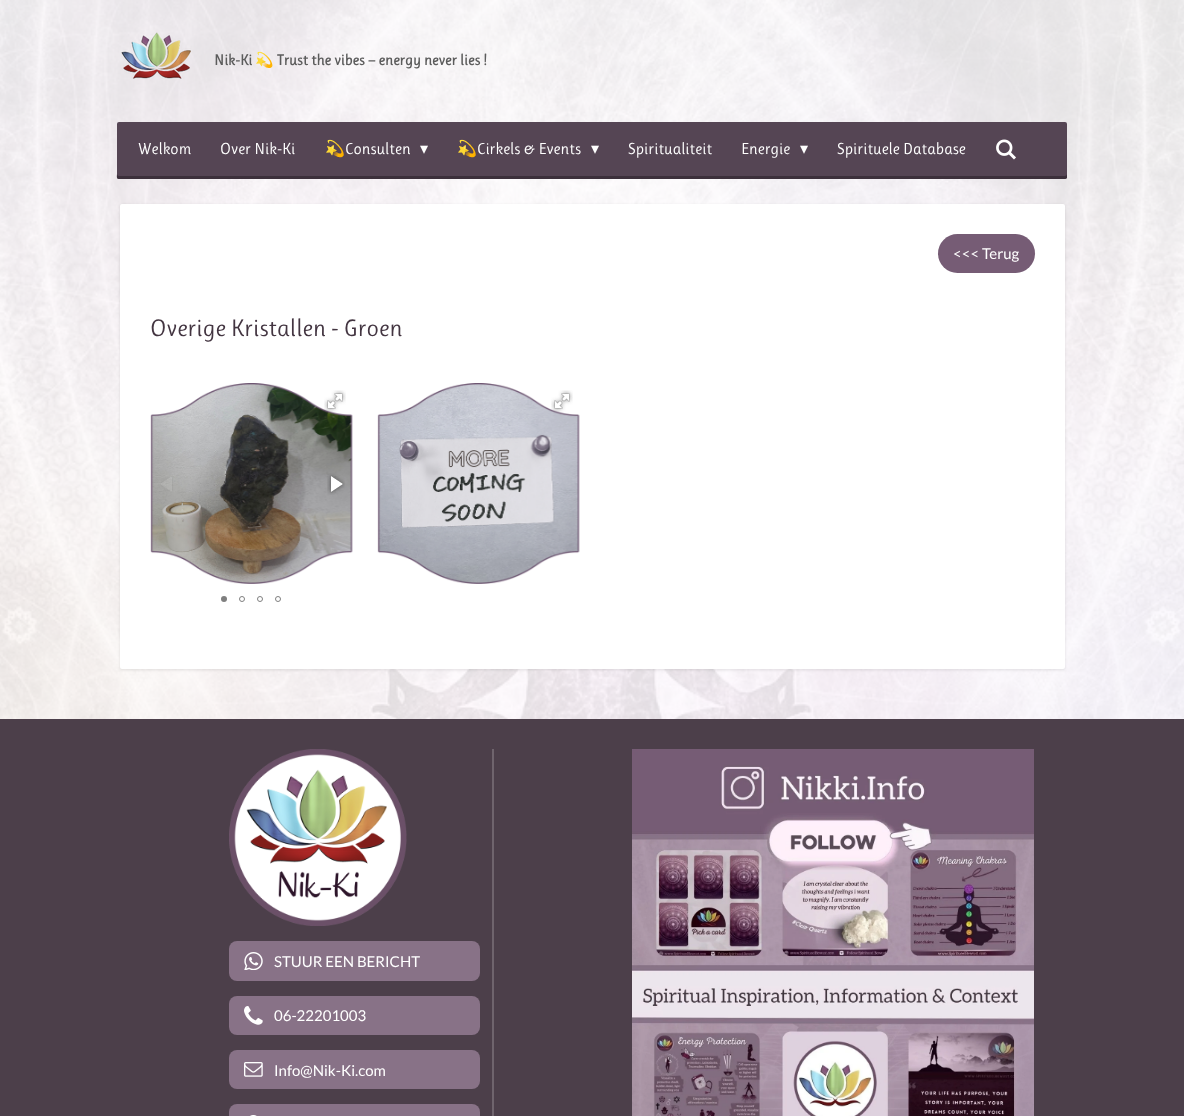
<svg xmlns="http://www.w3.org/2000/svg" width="1184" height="1116">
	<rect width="100%" height="100%" fill="#FFFFFF" />
	<image x="0" y="0" width="1184" height="719" href="assets/img1.png" />
	<image x="121" y="32" width="70" height="47" href="assets/img2.png" />
	<text x="214" y="65" font-family="Ruluko" font-size="14.9" font-weight="700" fill="#5C5C5C">Nik-Ki</text>
	<text x="255" y="65" font-family="Noto Color Emoji" font-size="14.9" font-weight="700" fill="#5C5C5C">💫</text>
	<text x="277" y="65" font-family="Ruluko" font-size="14.9" font-weight="700" fill="#5C5C5C">Trust the vibes — energy never lies !</text>
	<rect x="117" y="122" width="950" height="57" rx="2" fill="#554554" />
	<path d="M117 174C117 176 116 179 119 179H1065L1067 178V174C1067 175 1066 176 1065 176H119C118 176 117 175 117 174Z" fill="#3C303B" />
	<g font-family="Ruluko" font-size="16" fill="#FFFFFF">
		<text x="138" y="154">Welkom</text>
		<text x="220" y="154">Over Nik-Ki</text>
	</g>
	<text x="325" y="154" font-family="Noto Color Emoji" font-size="16" fill="#FFFFFF">💫</text>
	<text x="345" y="154" font-family="Ruluko" font-size="16" fill="#FFFFFF">Consulten</text>
	<text x="420" y="154" font-family="DejaVu Sans" font-size="16" fill="#FFFFFF">▾</text>
	<text x="457" y="154" font-family="Noto Color Emoji" font-size="16" fill="#FFFFFF">💫</text>
	<text x="477" y="154" font-family="Ruluko" font-size="16" fill="#FFFFFF">Cirkels &amp; Events</text>
	<text x="591" y="154" font-family="DejaVu Sans" font-size="16" fill="#FFFFFF">▾</text>
	<g font-family="Ruluko" font-size="16" fill="#FFFFFF">
		<text x="628" y="154">Spiritualiteit</text>
		<text x="741" y="154">Energie</text>
	</g>
	<text x="800" y="154" font-family="DejaVu Sans" font-size="16" fill="#FFFFFF">▾</text>
	<text x="837" y="154" font-family="Ruluko" font-size="16" fill="#FFFFFF">Spirituele Database</text>
	<image x="996" y="139" width="20" height="21" href="assets/img3.png" />
	<rect x="120" y="205" width="945" height="465" fill="#000000" fill-opacity="0.1" filter="blur(1.5px)" />
	<rect x="120" y="204" width="945" height="465" rx="2" fill="#FFFFFF" />
	<rect x="938" y="234" width="97" height="39" rx="19.5" fill="#765C75" />
	<text x="953" y="259" font-family="Lato" font-size="15" fill="#FFFFFF">&lt;&lt;&lt; Terug</text>
	<text x="150" y="336" font-family="Ruluko" font-size="24" fill="#433541">Overige Kristallen - Groen</text>
	<image x="150" y="383" width="203" height="201" href="assets/img4.png" />
	<image x="324" y="390" width="22" height="22" href="assets/img5.png" />
	<image x="161" y="477" width="12" height="14" href="assets/img6.png" />
	<image x="327" y="473" width="18" height="22" href="assets/img7.png" />
	<circle cx="224" cy="599" r="3" fill="#7F7F7F" />
	<circle cx="242" cy="599" r="2.5" fill="none" stroke="#7F7F7F" />
	<circle cx="260" cy="599" r="2.5" fill="none" stroke="#7F7F7F" />
	<circle cx="278" cy="599" r="2.5" fill="none" stroke="#7F7F7F" />
	<image x="377" y="383" width="203" height="201" href="assets/img8.png" />
	<image x="551" y="390" width="22" height="22" href="assets/img9.png" />
	<rect x="0" y="719" width="1184" height="397" fill="#4C3F4A" />
	<rect x="492" y="749" width="2" height="367" fill="#6F646D" />
	<image x="229" y="749" width="178" height="177" href="assets/img10.png" />
	<rect x="229" y="941" width="251" height="40" rx="8" fill="#887287" />
	<image x="244" y="952" width="19" height="18" href="assets/img11.png" />
	<text x="274" y="967" font-family="Lato" font-size="15" fill="#FFFFFF">STUUR EEN BERICHT</text>
	<rect x="229" y="996" width="251" height="39" rx="8" fill="#887287" />
	<image x="244" y="1006" width="19" height="19" href="assets/img12.png" />
	<text x="274" y="1021" font-family="Lato" font-size="15" fill="#FFFFFF">06-22201003</text>
	<rect x="229" y="1050" width="251" height="39" rx="8" fill="#887287" />
	<image x="244" y="1062" width="19" height="15" href="assets/img13.png" />
	<text x="274" y="1076" font-family="Lato" font-size="15" fill="#FFFFFF">Info@Nik-Ki.com</text>
	<rect x="229" y="1104" width="251" height="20" rx="8" fill="#887287" />
	<image x="250" y="1115" width="7" height="1" href="assets/img14.png" />
	<image x="632" y="749" width="402" height="367" href="assets/img15.png" />
</svg>
